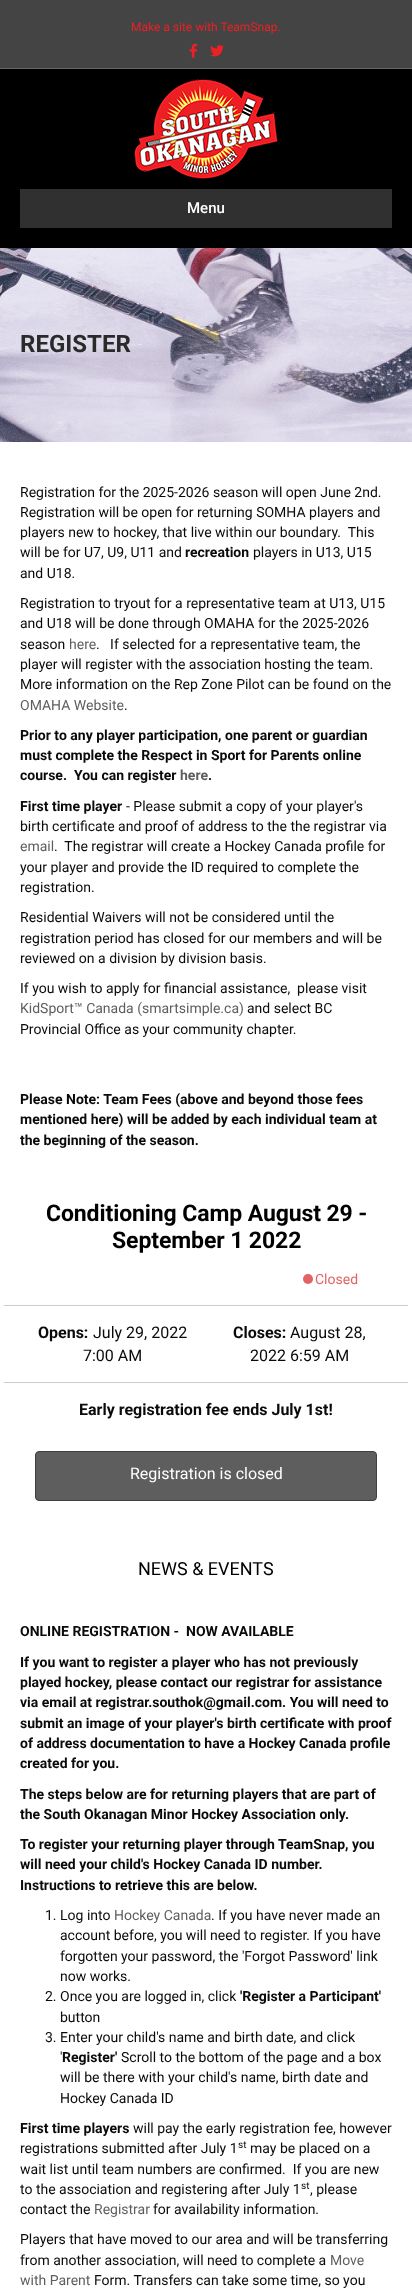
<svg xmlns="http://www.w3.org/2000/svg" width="412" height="2289">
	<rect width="100%" height="100%" fill="#444444" />
	<rect x="0" y="68" width="412" height="1" fill="#656565" />
	<text x="131" y="31" font-family="Roboto" font-size="12" fill="#ED2025">Make a site with TeamSnap.</text>
	<image x="189" y="43" width="9" height="15" href="assets/img1.png" />
	<image x="210" y="45" width="14" height="12" href="assets/img2.png" />
	<rect x="0" y="69" width="412" height="179" fill="#000000" />
	<image x="134" y="79" width="144" height="100" href="assets/img3.png" />
	<rect x="20" y="189" width="372" height="39" fill="#303030" />
	<text x="187" y="213" font-family="Roboto" font-size="15" font-weight="500" fill="#FFFFFF">Menu</text>
	<rect x="0" y="442" width="412" height="1847" fill="#FFFFFF" />
	<image x="0" y="248" width="412" height="194" href="assets/img4.png" />
	<text x="20" y="352" font-family="Roboto" font-size="24" font-weight="700" fill="#2A2A2A">REGISTER</text>
	<g font-family="Roboto" font-size="14" fill="#0A0A0A">
		<text x="20" y="497">Registration for the 2025-2026 season will open June 2nd.</text>
		<text x="20" y="517">Registration will be open for returning SOMHA players and</text>
		<text x="20" y="537" xml:space="preserve">players new to hockey, that live within our boundary.  This</text>
		<text x="20" y="557">will be for U7, U9, U11 and</text>
	</g>
	<text x="185" y="557" font-family="Roboto" font-size="14" font-weight="700" fill="#0A0A0A">recreation</text>
	<g font-family="Roboto" font-size="14" fill="#0A0A0A">
		<text x="253" y="557">players in U13, U15</text>
		<text x="20" y="578">and U18.</text>
		<text x="20" y="608">Registration to tryout for a representative team at U13, U15</text>
		<text x="20" y="628">and U18 will be done through OMAHA for the 2025-2026</text>
		<text x="20" y="649">season</text>
	</g>
	<text x="69" y="649" font-family="Roboto" font-size="14" fill="#5E5E5E">here</text>
	<g font-family="Roboto" font-size="14" fill="#0A0A0A">
		<text x="96" y="649" xml:space="preserve">.   If selected for a representative team, the</text>
		<text x="20" y="669">player will register with the association hosting the team.</text>
		<text x="20" y="689">More information on the Rep Zone Pilot can be found on the</text>
	</g>
	<text x="20" y="710" font-family="Roboto" font-size="14" fill="#5E5E5E">OMAHA Website</text>
	<text x="124" y="710" font-family="Roboto" font-size="14" fill="#0A0A0A">.</text>
	<g font-family="Roboto" font-size="14" font-weight="700" fill="#0A0A0A">
		<text x="20" y="740">Prior to any player participation, one parent or guardian</text>
		<text x="20" y="760">must complete the Respect in Sport for Parents online</text>
		<text x="20" y="780" xml:space="preserve">course.  You can register</text>
	</g>
	<text x="180" y="780" font-family="Roboto" font-size="14" font-weight="700" fill="#5E5E5E">here</text>
	<g font-family="Roboto" font-size="14" font-weight="700" fill="#0A0A0A">
		<text x="208" y="780">.</text>
		<text x="20" y="811">First time player</text>
	</g>
	<g font-family="Roboto" font-size="14" fill="#0A0A0A">
		<text x="126" y="811">- Please submit a copy of your player's</text>
		<text x="20" y="831">birth certificate and proof of address to the the registrar via</text>
	</g>
	<text x="20" y="851" font-family="Roboto" font-size="14" fill="#5E5E5E">email</text>
	<g font-family="Roboto" font-size="14" fill="#0A0A0A">
		<text x="54" y="851" xml:space="preserve">.  The registrar will create a Hockey Canada profile for</text>
		<text x="20" y="872">your player and provide the ID required to complete the</text>
		<text x="20" y="892">registration.</text>
		<text x="20" y="922">Residential Waivers will not be considered until the</text>
		<text x="20" y="943">registration period has closed for our members and will be</text>
		<text x="20" y="963">reviewed on a division by division basis.</text>
		<text x="20" y="993" xml:space="preserve">If you wish to apply for financial assistance,  please visit</text>
	</g>
	<text x="20" y="1013" font-family="Roboto" font-size="14" fill="#5E5E5E">KidSport™ Canada (smartsimple.ca)</text>
	<g font-family="Roboto" font-size="14" fill="#0A0A0A">
		<text x="247" y="1013">and select BC</text>
		<text x="20" y="1034">Provincial Office as your community chapter.</text>
	</g>
	<g font-family="Roboto" font-size="14" font-weight="700" fill="#0A0A0A">
		<text x="20" y="1104">Please Note: Team Fees (above and beyond those fees</text>
		<text x="20" y="1124">mentioned here) will be added by each individual team at</text>
		<text x="20" y="1145">the beginning of the season.</text>
	</g>
	<g font-family="Roboto" font-size="23" font-weight="700" letter-spacing="-0.1" fill="#000000">
		<text x="46" y="1221">Conditioning Camp August 29 -</text>
		<text x="112" y="1248">September 1 2022</text>
	</g>
	<rect x="4" y="1305" width="404" height="1" fill="#CCCCCC" />
	<circle cx="308" cy="1279" r="5" fill="#E26362" />
	<text x="315" y="1284" font-family="Roboto" font-size="14" fill="#E26362">Closed</text>
	<text x="38" y="1338" font-family="Roboto" font-size="16" font-weight="700" fill="#0A0A0A">Opens:</text>
	<g font-family="Roboto" font-size="16" fill="#0A0A0A">
		<text x="93" y="1338">July 29, 2022</text>
		<text x="83" y="1361">7:00 AM</text>
	</g>
	<text x="233" y="1338" font-family="Roboto" font-size="16" font-weight="700" fill="#0A0A0A">Closes:</text>
	<g font-family="Roboto" font-size="16" fill="#0A0A0A">
		<text x="290" y="1338">August 28,</text>
		<text x="250" y="1361">2022 6:59 AM</text>
	</g>
	<rect x="4" y="1382" width="404" height="1" fill="#CCCCCC" />
	<text x="79" y="1415" font-family="Roboto" font-size="16" font-weight="700" fill="#0A0A0A">Early registration fee ends July 1st!</text>
	<rect x="35.5" y="1451.5" width="341" height="49" rx="3.5" fill="#5E5E5E" stroke="#3F3F3F" />
	<text x="130" y="1479" font-family="Roboto" font-size="16" fill="#FFFFFF">Registration is closed</text>
	<text x="138" y="1575" font-family="Roboto" font-size="18" fill="#000000">NEWS &amp; EVENTS</text>
	<g font-family="Roboto" font-size="14" font-weight="700" fill="#0A0A0A">
		<text x="20" y="1636" xml:space="preserve">ONLINE REGISTRATION -  NOW AVAILABLE</text>
		<text x="20" y="1667">If you want to register a player who has not previously</text>
		<text x="20" y="1687">played hockey, please contact our registrar for assistance</text>
		<text x="20" y="1707">via email at registrar.southok@gmail.com. You will need to</text>
		<text x="20" y="1728">submit an image of your player's birth certificate with proof</text>
		<text x="20" y="1748">of address documentation to have a Hockey Canada profile</text>
		<text x="20" y="1768">created for you.</text>
		<text x="20" y="1799">The steps below are for returning players that are part of</text>
		<text x="20" y="1819">the South Okanagan Minor Hockey Association only.</text>
		<text x="20" y="1849">To register your returning player through TeamSnap, you</text>
		<text x="20" y="1869">will need your child's Hockey Canada ID number.</text>
		<text x="20" y="1890">Instructions to retrieve this are below.</text>
	</g>
	<text x="45" y="1920" font-family="Roboto" font-size="14" fill="#0A0A0A">1. Log into</text>
	<text x="114" y="1920" font-family="Roboto" font-size="14" fill="#5E5E5E">Hockey Canada</text>
	<g font-family="Roboto" font-size="14" fill="#0A0A0A">
		<text x="211" y="1920">. If you have never made an</text>
		<text x="60" y="1940">account before, you will need to register. If you have</text>
		<text x="60" y="1961">forgotten your password, the 'Forgot Password' link</text>
		<text x="60" y="1981">now works.</text>
		<text x="45" y="2001">2. Once you are logged in, click</text>
	</g>
	<text x="240" y="2001" font-family="Roboto" font-size="14" font-weight="700" fill="#0A0A0A">'Register a Participant'</text>
	<g font-family="Roboto" font-size="14" fill="#0A0A0A">
		<text x="60" y="2022">button</text>
		<text x="45" y="2042">3. Enter your child's name and birth date, and click</text>
		<text x="60" y="2062">'</text>
	</g>
	<text x="62" y="2062" font-family="Roboto" font-size="14" font-weight="700" fill="#0A0A0A">Register'</text>
	<g font-family="Roboto" font-size="14" fill="#0A0A0A">
		<text x="121" y="2062">Scroll to the bottom of the page and a box</text>
		<text x="60" y="2082">will be there with your child's name, birth date and</text>
		<text x="60" y="2103">Hockey Canada ID</text>
	</g>
	<text x="20" y="2133" font-family="Roboto" font-size="14" font-weight="700" fill="#0A0A0A">First time players</text>
	<g font-family="Roboto" font-size="14" fill="#0A0A0A">
		<text x="133" y="2133">will pay the early registration fee, however</text>
		<text x="20" y="2153">registrations submitted after July 1</text>
	</g>
	<text x="238" y="2148" font-family="Roboto" font-size="10" fill="#0A0A0A">st</text>
	<g font-family="Roboto" font-size="14" fill="#0A0A0A">
		<text x="250" y="2153">may be placed on a</text>
		<text x="20" y="2174" xml:space="preserve">wait list until team numbers are confirmed.  If you are new</text>
		<text x="20" y="2194">to the association and registering after July 1</text>
		<text x="310" y="2194">, please</text>
	</g>
	<text x="301" y="2189" font-family="Roboto" font-size="10" fill="#0A0A0A">st</text>
	<text x="20" y="2214" font-family="Roboto" font-size="14" fill="#0A0A0A">contact the</text>
	<text x="94" y="2214" font-family="Roboto" font-size="14" fill="#5E5E5E">Registrar</text>
	<g font-family="Roboto" font-size="14" fill="#0A0A0A">
		<text x="153" y="2214">for availability information.</text>
		<text x="20" y="2244">Players that have moved to our area and will be transferring</text>
		<text x="20" y="2265">from another association, will need to complete a</text>
	</g>
	<g font-family="Roboto" font-size="14" fill="#5E5E5E">
		<text x="330" y="2265">Move</text>
		<text x="20" y="2285">with Parent</text>
	</g>
	<text x="94" y="2285" font-family="Roboto" font-size="14" fill="#0A0A0A">Form. Transfers can take some time, so you</text>
</svg>
